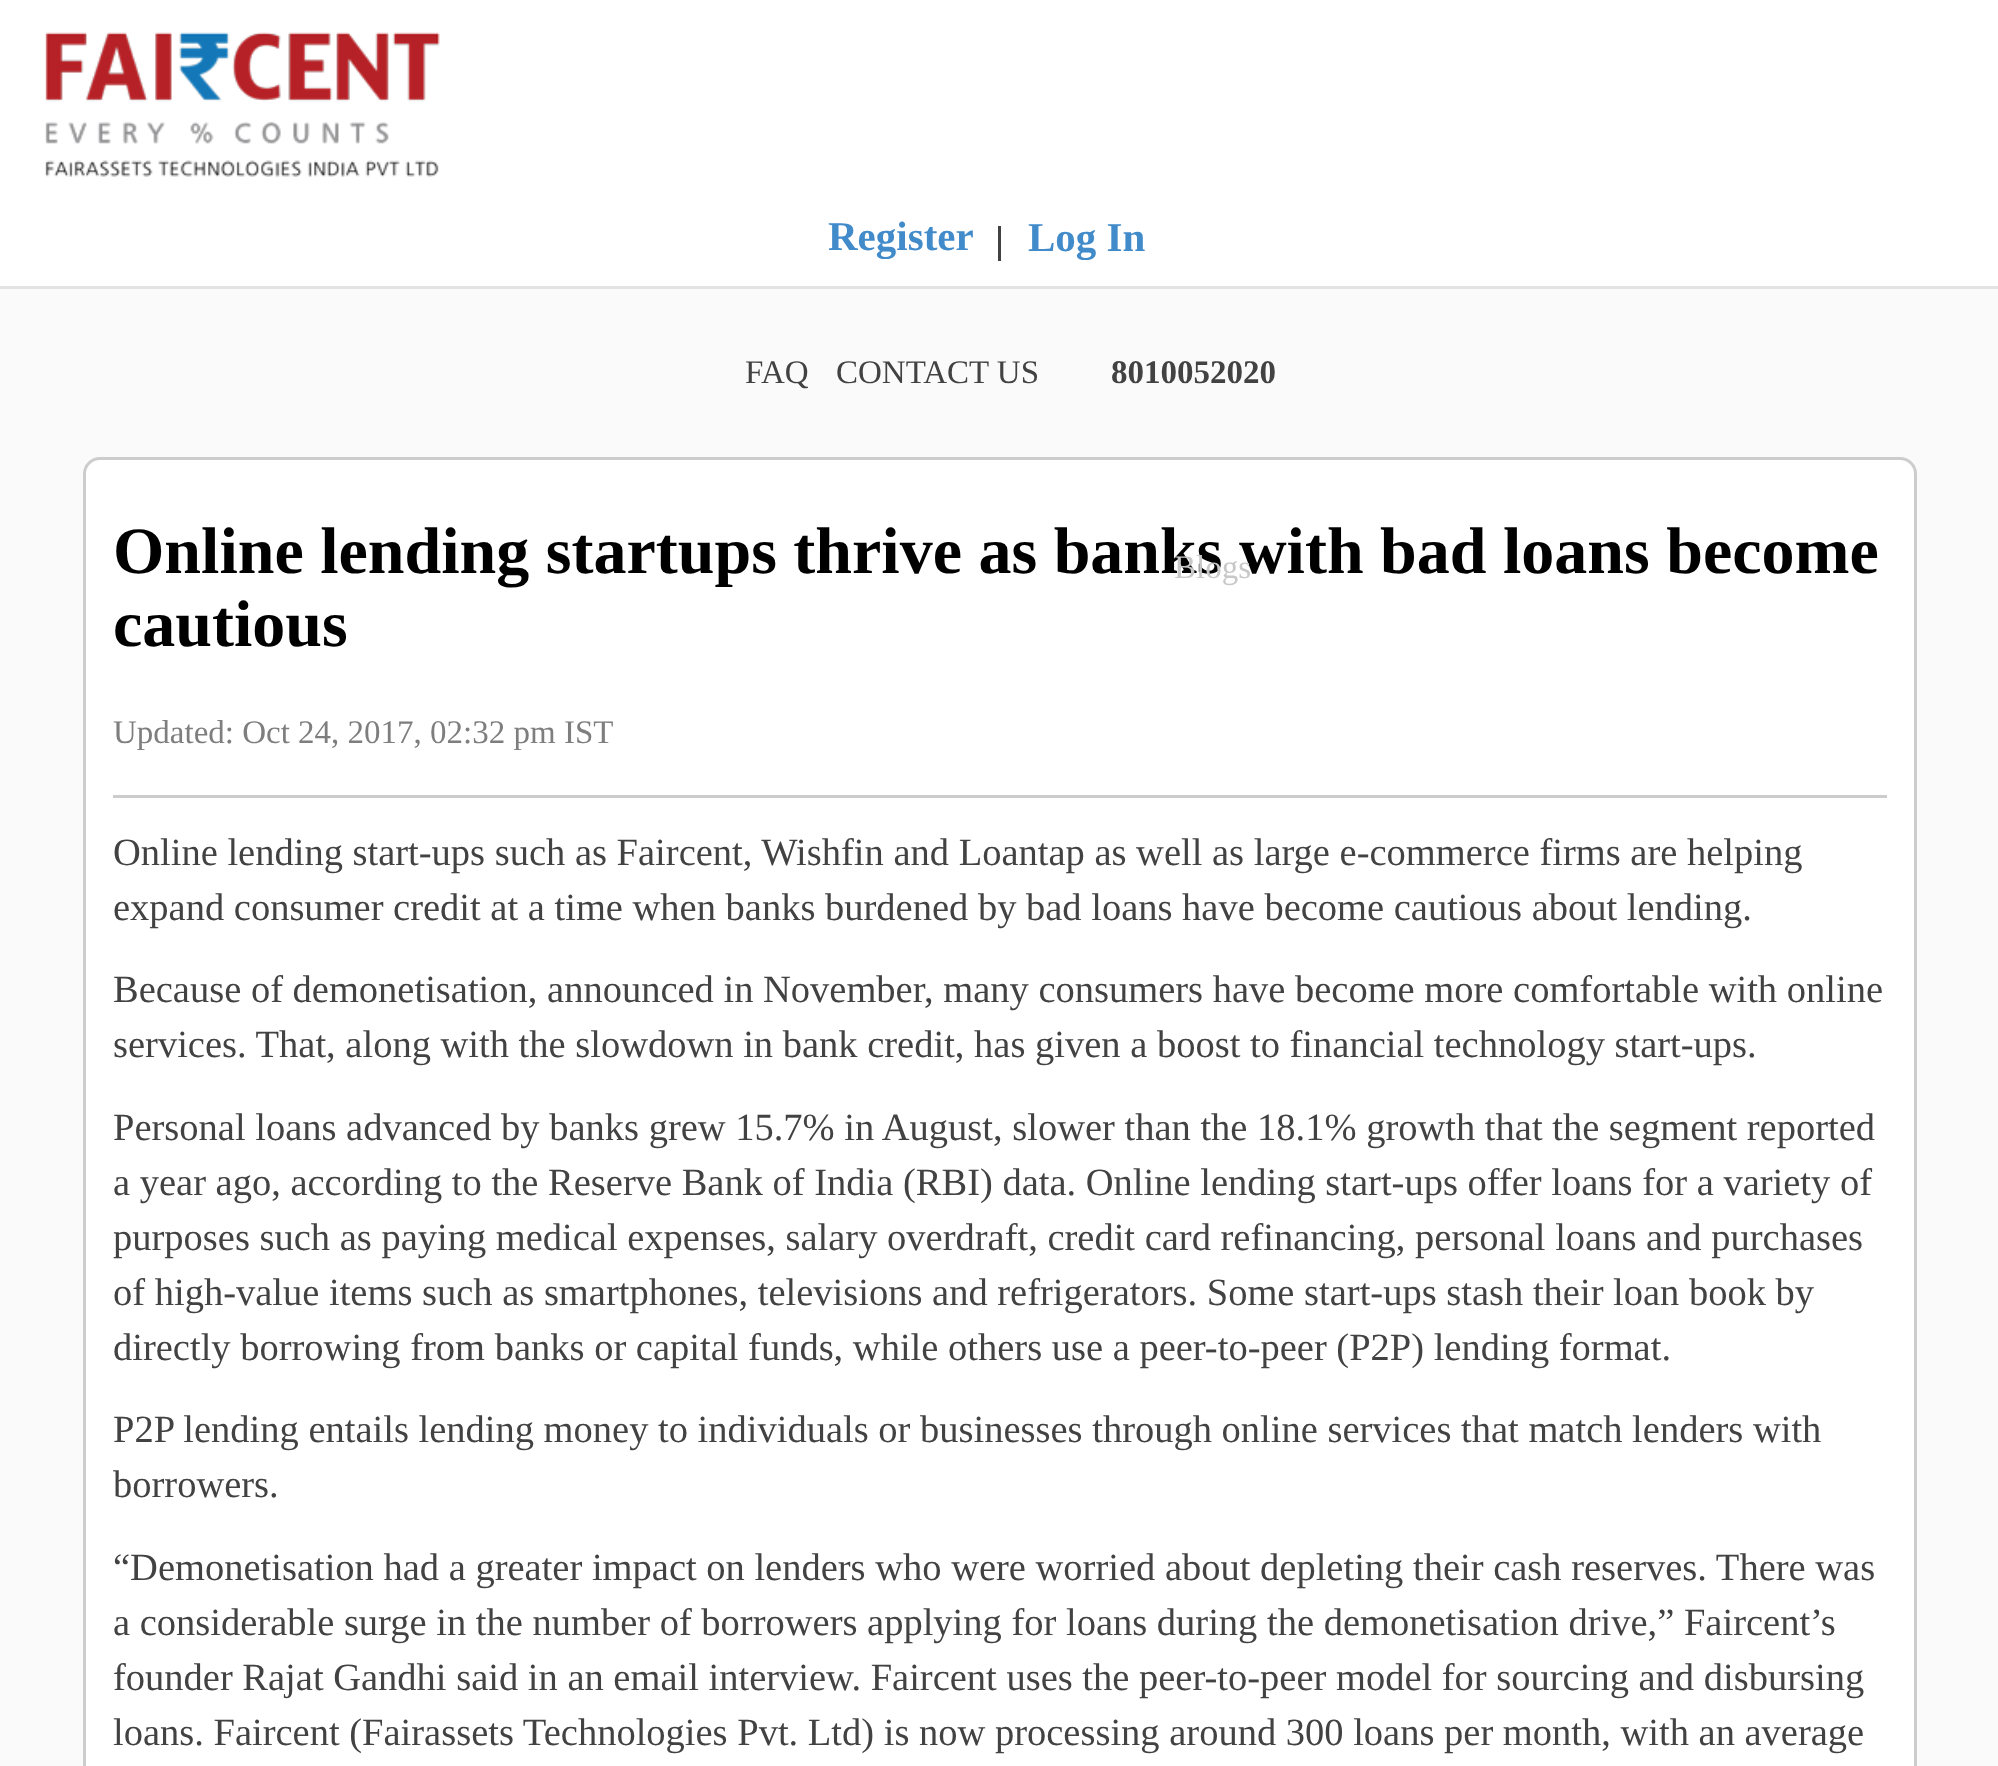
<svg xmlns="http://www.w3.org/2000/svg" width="1998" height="1766">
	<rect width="100%" height="100%" fill="#FAFAFA" />
	<rect x="0" y="0" width="1998" height="286" fill="#FFFFFF" />
	<rect x="0" y="286" width="1998" height="3" fill="#E3E3E3" />
	<image x="45" y="32" width="395" height="145" href="assets/img1.png" />
	<text x="828" y="250" font-family="Liberation Serif" font-size="41" font-weight="700" fill="#428BCA">Register</text>
	<rect x="998" y="226" width="3" height="35" fill="#424242" />
	<text x="1028" y="251" font-family="Liberation Serif" font-size="41" font-weight="700" fill="#428BCA">Log In</text>
	<rect x="84.5" y="458.5" width="1831" height="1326" rx="15.5" fill="#FFFFFF" stroke="#CCCCCC" stroke-width="3" />
	<text x="113" y="573" font-family="Liberation Serif" font-size="66" font-weight="700" fill="#000000">Online lending startups thrive as banks with bad loans become</text>
	<text x="1174" y="578" font-family="Liberation Serif" font-size="33" fill="#C8C8C8">Blogs</text>
	<g font-family="Liberation Serif" font-size="33" fill="#424242">
		<text x="745" y="383">FAQ</text>
		<text x="836" y="383">CONTACT US</text>
	</g>
	<text x="1111" y="383" font-family="Liberation Serif" font-size="33" font-weight="700" fill="#424242">8010052020</text>
	<text x="113" y="646" font-family="Liberation Serif" font-size="66" font-weight="700" fill="#000000">cautious</text>
	<rect x="113" y="795" width="1774" height="3" fill="#CCCCCC" />
	<text x="113" y="743" font-family="Liberation Serif" font-size="33" fill="#7E7E7E">Updated: Oct 24, 2017, 02:32 pm IST</text>
	<g font-family="Liberation Serif" font-size="38.5" fill="#424242">
		<text x="113" y="865">Online lending start-ups such as Faircent, Wishfin and Loantap as well as large e-commerce firms are helping</text>
		<text x="113" y="920">expand consumer credit at a time when banks burdened by bad loans have become cautious about lending.</text>
		<text x="113" y="1002">Because of demonetisation, announced in November, many consumers have become more comfortable with online</text>
		<text x="113" y="1057">services. That, along with the slowdown in bank credit, has given a boost to financial technology start-ups.</text>
		<text x="113" y="1140">Personal loans advanced by banks grew 15.7% in August, slower than the 18.1% growth that the segment reported</text>
		<text x="113" y="1195">a year ago, according to the Reserve Bank of India (RBI) data. Online lending start-ups offer loans for a variety of</text>
		<text x="113" y="1250">purposes such as paying medical expenses, salary overdraft, credit card refinancing, personal loans and purchases</text>
		<text x="113" y="1305">of high-value items such as smartphones, televisions and refrigerators. Some start-ups stash their loan book by</text>
		<text x="113" y="1360">directly borrowing from banks or capital funds, while others use a peer-to-peer (P2P) lending format.</text>
		<text x="113" y="1442">P2P lending entails lending money to individuals or businesses through online services that match lenders with</text>
		<text x="113" y="1497">borrowers.</text>
		<text x="113" y="1580">“Demonetisation had a greater impact on lenders who were worried about depleting their cash reserves. There was</text>
		<text x="113" y="1635">a considerable surge in the number of borrowers applying for loans during the demonetisation drive,” Faircent’s</text>
		<text x="113" y="1690">founder Rajat Gandhi said in an email interview. Faircent uses the peer-to-peer model for sourcing and disbursing</text>
		<text x="113" y="1745">loans. Faircent (Fairassets Technologies Pvt. Ltd) is now processing around 300 loans per month, with an average</text>
	</g>
</svg>
